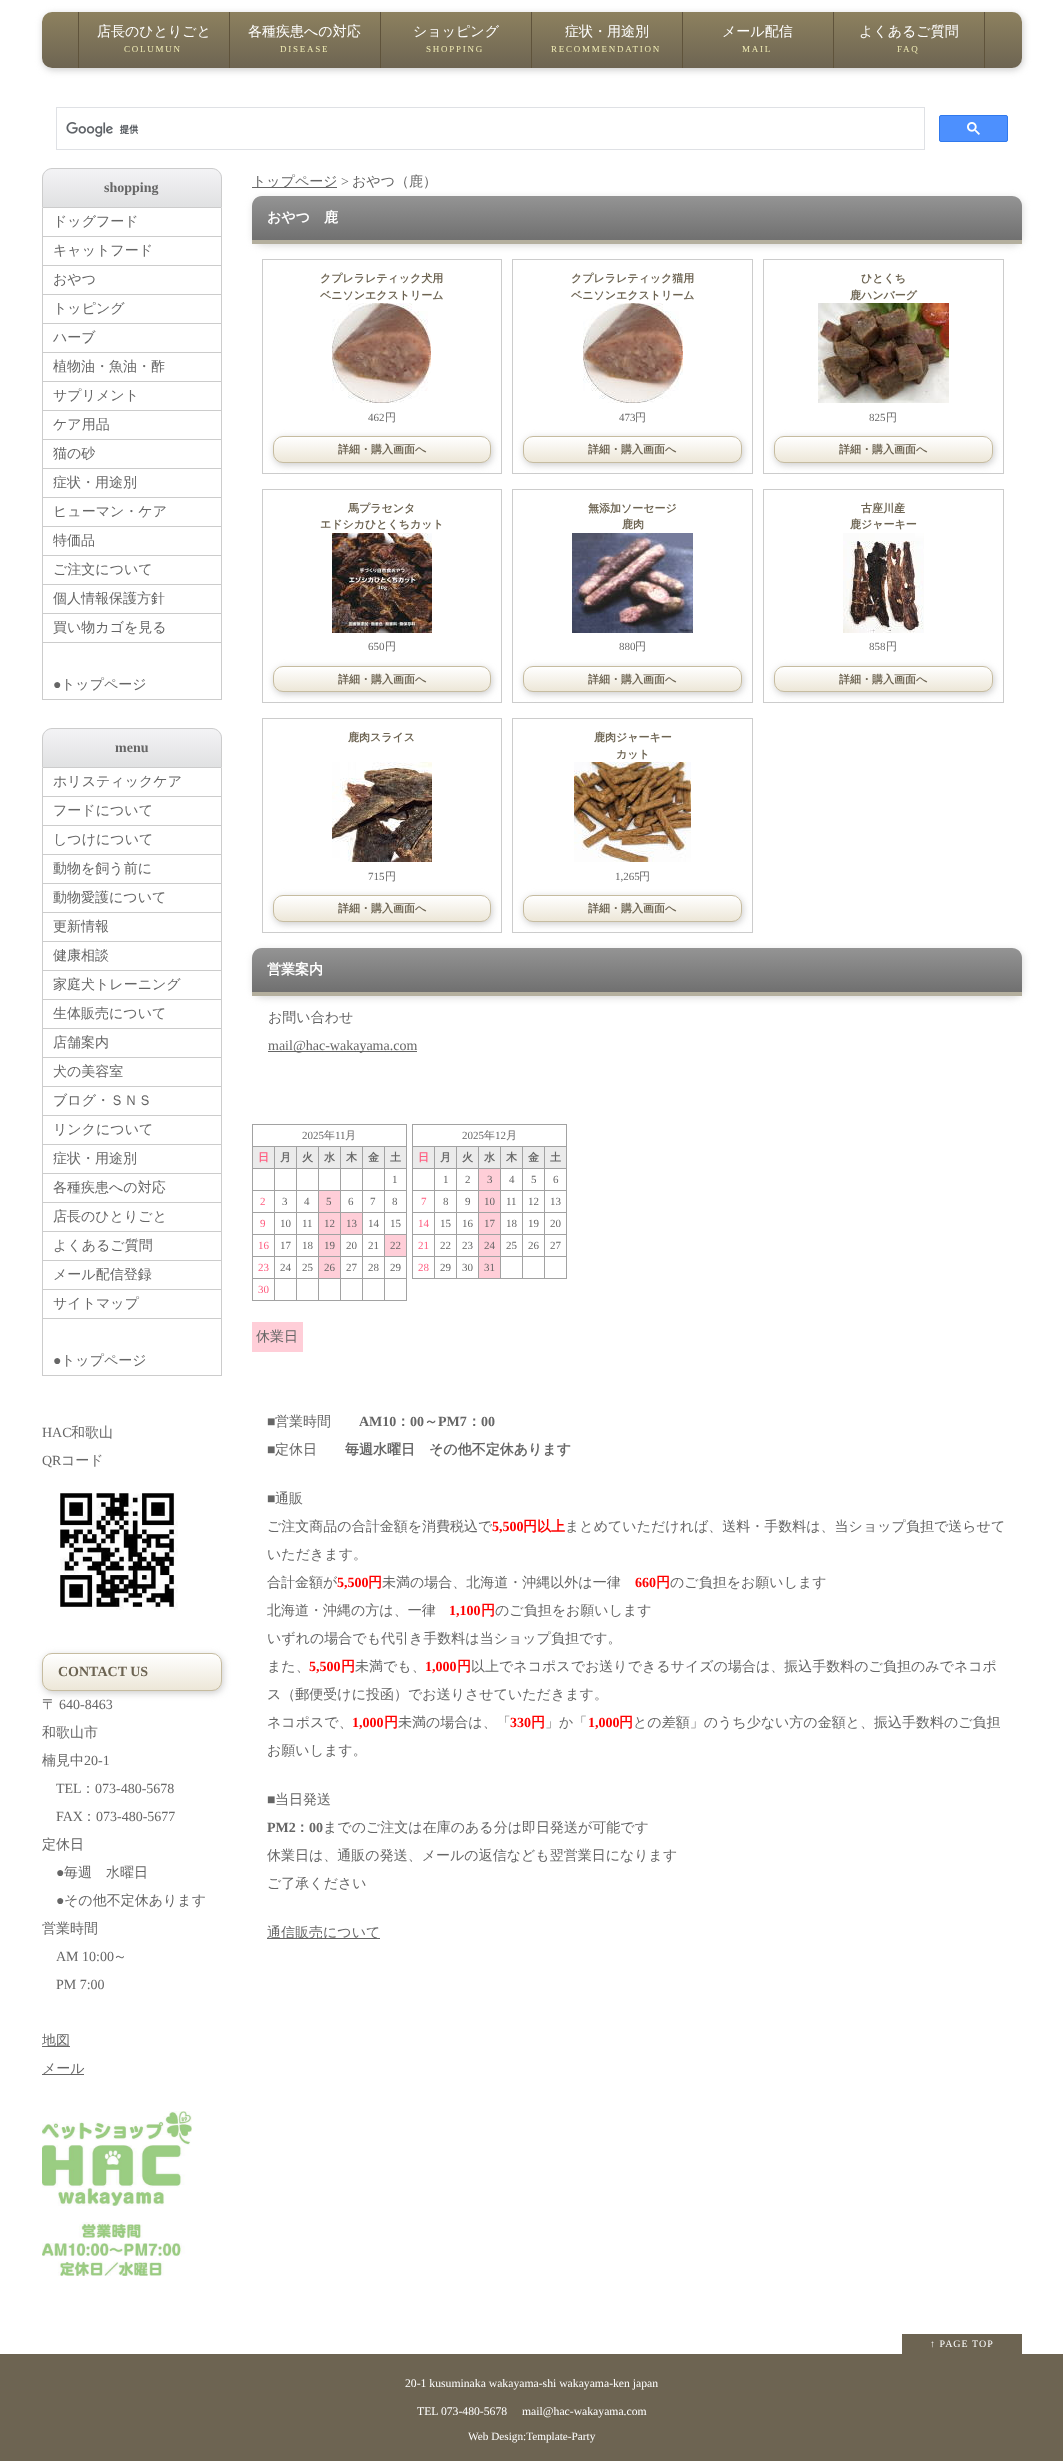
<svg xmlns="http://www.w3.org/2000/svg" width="1063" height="2461">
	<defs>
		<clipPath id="clip1"><path d="M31 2H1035V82H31ZM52 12H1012C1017.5 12 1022 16.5 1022 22V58C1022 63.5 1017.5 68 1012 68H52C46.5 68 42 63.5 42 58V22C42 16.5 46.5 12 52 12Z" clip-rule="evenodd" /></clipPath>
		<linearGradient id="g1" gradientUnits="userSpaceOnUse" x1="532" y1="12" x2="532" y2="68"><stop offset="0" stop-color="#5C4B1A" stop-opacity="0.7" /><stop offset="1" stop-color="#2F2208" stop-opacity="0.7" /></linearGradient>
		<clipPath id="clip2"><path d="M52 168H212C217.5 168 222 172.5 222 178V208H42V178C42 172.5 46.5 168 52 168Z" /></clipPath>
		<linearGradient id="g2" gradientUnits="userSpaceOnUse" x1="132" y1="169" x2="132" y2="207"><stop offset="0" stop-color="#F3F3F5" /><stop offset="1" stop-color="#E0E1E2" /></linearGradient>
		<clipPath id="clip3"><path d="M52 728H212C217.5 728 222 732.5 222 738V768H42V738C42 732.5 46.5 728 52 728Z" /></clipPath>
		<linearGradient id="g3" gradientUnits="userSpaceOnUse" x1="132" y1="729" x2="132" y2="767"><stop offset="0" stop-color="#F3F3F5" /><stop offset="1" stop-color="#E0E1E2" /></linearGradient>
		<clipPath id="clip4"><rect x="42" y="1653" width="180" height="38" rx="10" /></clipPath>
		<linearGradient id="g4" gradientUnits="userSpaceOnUse" x1="132" y1="1654" x2="132" y2="1690"><stop offset="0" stop-color="#FFFFFF" /><stop offset="1" stop-color="#EDE7D8" /></linearGradient>
		<linearGradient id="g5" gradientUnits="userSpaceOnUse" x1="637" y1="196" x2="637" y2="240"><stop offset="0" stop-color="#949494" /><stop offset="1" stop-color="#707070" /></linearGradient>
		<clipPath id="clip5"><rect x="273" y="436" width="218" height="27" rx="10" /></clipPath>
		<linearGradient id="g6" gradientUnits="userSpaceOnUse" x1="382" y1="437" x2="382" y2="462"><stop offset="0" stop-color="#FFFFFF" /><stop offset="1" stop-color="#EDE7D8" /></linearGradient>
		<clipPath id="clip6"><rect x="523" y="436" width="219" height="27" rx="10" /></clipPath>
		<linearGradient id="g7" gradientUnits="userSpaceOnUse" x1="633" y1="437" x2="633" y2="462"><stop offset="0" stop-color="#FFFFFF" /><stop offset="1" stop-color="#EDE7D8" /></linearGradient>
		<clipPath id="clip7"><rect x="774" y="436" width="219" height="27" rx="10" /></clipPath>
		<linearGradient id="g8" gradientUnits="userSpaceOnUse" x1="884" y1="437" x2="884" y2="462"><stop offset="0" stop-color="#FFFFFF" /><stop offset="1" stop-color="#EDE7D8" /></linearGradient>
		<clipPath id="clip8"><rect x="273" y="666" width="218" height="26" rx="10" /></clipPath>
		<linearGradient id="g9" gradientUnits="userSpaceOnUse" x1="382" y1="667" x2="382" y2="691"><stop offset="0" stop-color="#FFFFFF" /><stop offset="1" stop-color="#EDE7D8" /></linearGradient>
		<clipPath id="clip9"><rect x="523" y="666" width="219" height="26" rx="10" /></clipPath>
		<linearGradient id="g10" gradientUnits="userSpaceOnUse" x1="633" y1="667" x2="633" y2="691"><stop offset="0" stop-color="#FFFFFF" /><stop offset="1" stop-color="#EDE7D8" /></linearGradient>
		<clipPath id="clip10"><rect x="774" y="666" width="219" height="26" rx="10" /></clipPath>
		<linearGradient id="g11" gradientUnits="userSpaceOnUse" x1="884" y1="667" x2="884" y2="691"><stop offset="0" stop-color="#FFFFFF" /><stop offset="1" stop-color="#EDE7D8" /></linearGradient>
		<clipPath id="clip11"><rect x="273" y="895" width="218" height="27" rx="10" /></clipPath>
		<linearGradient id="g12" gradientUnits="userSpaceOnUse" x1="382" y1="896" x2="382" y2="921"><stop offset="0" stop-color="#FFFFFF" /><stop offset="1" stop-color="#EDE7D8" /></linearGradient>
		<clipPath id="clip12"><rect x="523" y="895" width="219" height="27" rx="10" /></clipPath>
		<linearGradient id="g13" gradientUnits="userSpaceOnUse" x1="633" y1="896" x2="633" y2="921"><stop offset="0" stop-color="#FFFFFF" /><stop offset="1" stop-color="#EDE7D8" /></linearGradient>
		<linearGradient id="g14" gradientUnits="userSpaceOnUse" x1="637" y1="948" x2="637" y2="992"><stop offset="0" stop-color="#949494" /><stop offset="1" stop-color="#707070" /></linearGradient>
	</defs>
	<rect width="100%" height="100%" fill="#FFFFFF" />
	<g clip-path="url(#clip1)">
		<rect x="43" y="14" width="980" height="56" rx="10" fill="#CCCCCC" filter="blur(3.5px)" />
	</g>
	<rect x="42" y="12" width="980" height="56" rx="10" fill="url(#g1)" />
	<rect x="229" y="12" width="1" height="56" fill="#5F533B" />
	<rect x="78" y="12" width="1" height="56" fill="#5F533B" />
	<text x="97" y="36" font-family="WenQuanYi Zen Hei" font-size="14" font-weight="500" fill="#FFFFFF">店長のひとりごと</text>
	<text x="124" y="52" font-family="Liberation Serif" font-size="9" letter-spacing="1.75" fill="#EEEAB3">COLUMUN</text>
	<rect x="380" y="12" width="1" height="56" fill="#5F533B" />
	<text x="248" y="36" font-family="WenQuanYi Zen Hei" font-size="14" font-weight="500" fill="#FFFFFF">各種疾患への対応</text>
	<text x="280" y="52" font-family="Liberation Serif" font-size="9" letter-spacing="1.75" fill="#EEEAB3">DISEASE</text>
	<rect x="531" y="12" width="1" height="56" fill="#5F533B" />
	<text x="413" y="36" font-family="WenQuanYi Zen Hei" font-size="14" font-weight="500" fill="#FFFFFF">ショッピング</text>
	<text x="426" y="52" font-family="Liberation Serif" font-size="9" letter-spacing="1.75" fill="#EEEAB3">SHOPPING</text>
	<rect x="682" y="12" width="1" height="56" fill="#5F533B" />
	<text x="565" y="36" font-family="WenQuanYi Zen Hei" font-size="14" font-weight="500" fill="#FFFFFF">症状・用途別</text>
	<text x="551" y="52" font-family="Liberation Serif" font-size="9" letter-spacing="1.75" fill="#EEEAB3">RECOMMENDATION</text>
	<rect x="833" y="12" width="1" height="56" fill="#5F533B" />
	<text x="722" y="36" font-family="WenQuanYi Zen Hei" font-size="14" font-weight="500" fill="#FFFFFF">メール配信</text>
	<text x="742" y="52" font-family="Liberation Serif" font-size="9" letter-spacing="1.75" fill="#EEEAB3">MAIL</text>
	<rect x="984" y="12" width="1" height="56" fill="#5F533B" />
	<text x="859" y="36" font-family="WenQuanYi Zen Hei" font-size="14" font-weight="500" fill="#FFFFFF">よくあるご質問</text>
	<text x="897" y="52" font-family="Liberation Serif" font-size="9" letter-spacing="1.75" fill="#EEEAB3">FAQ</text>
	<rect x="56.5" y="107.5" width="868" height="42" fill="none" stroke="#DFE1E5" />
	<image x="66" y="122" width="73" height="15" href="assets/img1.png" />
	<rect x="939.5" y="115.5" width="68" height="26" rx="1.5" fill="#4D90FE" stroke="#3079ED" />
	<image x="967" y="122" width="13" height="13" href="assets/img2.png" />
	<g clip-path="url(#clip2)">
		<rect x="42" y="169" width="180" height="38" fill="url(#g2)" />
	</g>
	<path d="M52 168.5H212C217 168.5 221.5 173 221.5 178V207.5H42.5V178C42.5 173 47 168.5 52 168.5Z" fill="none" stroke="#CCCCCC" />
	<text x="104" y="192" font-family="Liberation Serif" font-size="14" font-weight="700" fill="#666666">shopping</text>
	<rect x="221" y="208" width="1" height="492" fill="#CCCCCC" />
	<rect x="42" y="236" width="180" height="1" fill="#CCCCCC" />
	<rect x="42" y="208" width="1" height="29" fill="#CCCCCC" />
	<text x="53" y="226" font-family="WenQuanYi Zen Hei" font-size="14" font-weight="500" fill="#666666">ドッグフード</text>
	<rect x="42" y="265" width="180" height="1" fill="#CCCCCC" />
	<rect x="42" y="237" width="1" height="29" fill="#CCCCCC" />
	<text x="53" y="255" font-family="WenQuanYi Zen Hei" font-size="14" font-weight="500" fill="#666666">キャットフード</text>
	<rect x="42" y="294" width="180" height="1" fill="#CCCCCC" />
	<rect x="42" y="266" width="1" height="29" fill="#CCCCCC" />
	<text x="53" y="284" font-family="WenQuanYi Zen Hei" font-size="14" font-weight="500" fill="#666666">おやつ</text>
	<rect x="42" y="323" width="180" height="1" fill="#CCCCCC" />
	<rect x="42" y="295" width="1" height="29" fill="#CCCCCC" />
	<text x="53" y="313" font-family="WenQuanYi Zen Hei" font-size="14" font-weight="500" fill="#666666">トッピング</text>
	<rect x="42" y="352" width="180" height="1" fill="#CCCCCC" />
	<rect x="42" y="324" width="1" height="29" fill="#CCCCCC" />
	<text x="53" y="342" font-family="WenQuanYi Zen Hei" font-size="14" font-weight="500" fill="#666666">ハーブ</text>
	<rect x="42" y="381" width="180" height="1" fill="#CCCCCC" />
	<rect x="42" y="353" width="1" height="29" fill="#CCCCCC" />
	<text x="53" y="371" font-family="WenQuanYi Zen Hei" font-size="14" font-weight="500" fill="#666666">植物油・魚油・酢</text>
	<rect x="42" y="410" width="180" height="1" fill="#CCCCCC" />
	<rect x="42" y="382" width="1" height="29" fill="#CCCCCC" />
	<text x="53" y="400" font-family="WenQuanYi Zen Hei" font-size="14" font-weight="500" fill="#666666">サプリメント</text>
	<rect x="42" y="439" width="180" height="1" fill="#CCCCCC" />
	<rect x="42" y="411" width="1" height="29" fill="#CCCCCC" />
	<text x="53" y="429" font-family="WenQuanYi Zen Hei" font-size="14" font-weight="500" fill="#666666">ケア用品</text>
	<rect x="42" y="468" width="180" height="1" fill="#CCCCCC" />
	<rect x="42" y="440" width="1" height="29" fill="#CCCCCC" />
	<text x="53" y="458" font-family="WenQuanYi Zen Hei" font-size="14" font-weight="500" fill="#666666">猫の砂</text>
	<rect x="42" y="497" width="180" height="1" fill="#CCCCCC" />
	<rect x="42" y="469" width="1" height="29" fill="#CCCCCC" />
	<text x="53" y="487" font-family="WenQuanYi Zen Hei" font-size="14" font-weight="500" fill="#666666">症状・用途別</text>
	<rect x="42" y="526" width="180" height="1" fill="#CCCCCC" />
	<rect x="42" y="498" width="1" height="29" fill="#CCCCCC" />
	<text x="53" y="516" font-family="WenQuanYi Zen Hei" font-size="14" font-weight="500" fill="#666666">ヒューマン・ケア</text>
	<rect x="42" y="555" width="180" height="1" fill="#CCCCCC" />
	<rect x="42" y="527" width="1" height="29" fill="#CCCCCC" />
	<text x="53" y="545" font-family="WenQuanYi Zen Hei" font-size="14" font-weight="500" fill="#666666">特価品</text>
	<rect x="42" y="584" width="180" height="1" fill="#CCCCCC" />
	<rect x="42" y="556" width="1" height="29" fill="#CCCCCC" />
	<text x="53" y="574" font-family="WenQuanYi Zen Hei" font-size="14" font-weight="500" fill="#666666">ご注文について</text>
	<rect x="42" y="613" width="180" height="1" fill="#CCCCCC" />
	<rect x="42" y="585" width="1" height="29" fill="#CCCCCC" />
	<text x="53" y="603" font-family="WenQuanYi Zen Hei" font-size="14" font-weight="500" fill="#666666">個人情報保護方針</text>
	<rect x="42" y="642" width="180" height="1" fill="#CCCCCC" />
	<rect x="42" y="614" width="1" height="29" fill="#CCCCCC" />
	<text x="53" y="632" font-family="WenQuanYi Zen Hei" font-size="14" font-weight="500" fill="#666666">買い物カゴを見る</text>
	<rect x="42" y="699" width="180" height="1" fill="#CCCCCC" />
	<rect x="42" y="643" width="1" height="57" fill="#CCCCCC" />
	<text x="53" y="689" font-family="Liberation Serif" font-size="14" fill="#666666">●</text>
	<text x="61" y="689" font-family="WenQuanYi Zen Hei" font-size="14" font-weight="500" fill="#666666">トップページ</text>
	<g clip-path="url(#clip3)">
		<rect x="42" y="729" width="180" height="38" fill="url(#g3)" />
	</g>
	<path d="M52 728.5H212C217 728.5 221.5 733 221.5 738V767.5H42.5V738C42.5 733 47 728.5 52 728.5Z" fill="none" stroke="#CCCCCC" />
	<text x="115" y="752" font-family="Liberation Serif" font-size="14" font-weight="700" fill="#666666">menu</text>
	<rect x="221" y="768" width="1" height="608" fill="#CCCCCC" />
	<rect x="42" y="768" width="1" height="608" fill="#CCCCCC" />
	<rect x="43" y="796" width="178" height="1" fill="#CCCCCC" />
	<text x="53" y="786" font-family="WenQuanYi Zen Hei" font-size="14" font-weight="500" fill="#666666">ホリスティックケア</text>
	<rect x="43" y="825" width="178" height="1" fill="#CCCCCC" />
	<text x="53" y="815" font-family="WenQuanYi Zen Hei" font-size="14" font-weight="500" fill="#666666">フードについて</text>
	<rect x="43" y="854" width="178" height="1" fill="#CCCCCC" />
	<text x="53" y="844" font-family="WenQuanYi Zen Hei" font-size="14" font-weight="500" fill="#666666">しつけについて</text>
	<rect x="43" y="883" width="178" height="1" fill="#CCCCCC" />
	<text x="53" y="873" font-family="WenQuanYi Zen Hei" font-size="14" font-weight="500" fill="#666666">動物を飼う前に</text>
	<rect x="43" y="912" width="178" height="1" fill="#CCCCCC" />
	<text x="53" y="902" font-family="WenQuanYi Zen Hei" font-size="14" font-weight="500" fill="#666666">動物愛護について</text>
	<rect x="43" y="941" width="178" height="1" fill="#CCCCCC" />
	<text x="53" y="931" font-family="WenQuanYi Zen Hei" font-size="14" font-weight="500" fill="#666666">更新情報</text>
	<rect x="43" y="970" width="178" height="1" fill="#CCCCCC" />
	<text x="53" y="960" font-family="WenQuanYi Zen Hei" font-size="14" font-weight="500" fill="#666666">健康相談</text>
	<rect x="43" y="999" width="178" height="1" fill="#CCCCCC" />
	<text x="53" y="989" font-family="WenQuanYi Zen Hei" font-size="14" font-weight="500" fill="#666666">家庭犬トレーニング</text>
	<rect x="43" y="1028" width="178" height="1" fill="#CCCCCC" />
	<text x="53" y="1018" font-family="WenQuanYi Zen Hei" font-size="14" font-weight="500" fill="#666666">生体販売について</text>
	<rect x="43" y="1057" width="178" height="1" fill="#CCCCCC" />
	<text x="53" y="1047" font-family="WenQuanYi Zen Hei" font-size="14" font-weight="500" fill="#666666">店舗案内</text>
	<rect x="43" y="1086" width="178" height="1" fill="#CCCCCC" />
	<text x="53" y="1076" font-family="WenQuanYi Zen Hei" font-size="14" font-weight="500" fill="#666666">犬の美容室</text>
	<rect x="43" y="1115" width="178" height="1" fill="#CCCCCC" />
	<text x="53" y="1105" font-family="WenQuanYi Zen Hei" font-size="14" font-weight="500" fill="#666666">ブログ・ＳＮＳ</text>
	<rect x="43" y="1144" width="178" height="1" fill="#CCCCCC" />
	<text x="53" y="1134" font-family="WenQuanYi Zen Hei" font-size="14" font-weight="500" fill="#666666">リンクについて</text>
	<rect x="43" y="1173" width="178" height="1" fill="#CCCCCC" />
	<text x="53" y="1163" font-family="WenQuanYi Zen Hei" font-size="14" font-weight="500" fill="#666666">症状・用途別</text>
	<rect x="43" y="1202" width="178" height="1" fill="#CCCCCC" />
	<text x="53" y="1192" font-family="WenQuanYi Zen Hei" font-size="14" font-weight="500" fill="#666666">各種疾患への対応</text>
	<rect x="43" y="1231" width="178" height="1" fill="#CCCCCC" />
	<text x="53" y="1221" font-family="WenQuanYi Zen Hei" font-size="14" font-weight="500" fill="#666666">店長のひとりごと</text>
	<rect x="43" y="1260" width="178" height="1" fill="#CCCCCC" />
	<text x="53" y="1250" font-family="WenQuanYi Zen Hei" font-size="14" font-weight="500" fill="#666666">よくあるご質問</text>
	<rect x="43" y="1289" width="178" height="1" fill="#CCCCCC" />
	<text x="53" y="1279" font-family="WenQuanYi Zen Hei" font-size="14" font-weight="500" fill="#666666">メール配信登録</text>
	<rect x="43" y="1318" width="178" height="1" fill="#CCCCCC" />
	<text x="53" y="1308" font-family="WenQuanYi Zen Hei" font-size="14" font-weight="500" fill="#666666">サイトマップ</text>
	<rect x="43" y="1375" width="178" height="1" fill="#CCCCCC" />
	<text x="53" y="1365" font-family="Liberation Serif" font-size="14" fill="#666666">●</text>
	<text x="61" y="1365" font-family="WenQuanYi Zen Hei" font-size="14" font-weight="500" fill="#666666">トップページ</text>
	<text x="42" y="1437" font-family="Liberation Serif" font-size="14" fill="#666666">HAC</text>
	<text x="71" y="1437" font-family="WenQuanYi Zen Hei" font-size="14" font-weight="500" fill="#666666">和歌山</text>
	<text x="42" y="1465" font-family="Liberation Serif" font-size="14" fill="#666666">QR</text>
	<text x="61" y="1465" font-family="WenQuanYi Zen Hei" font-size="14" font-weight="500" fill="#666666">コード</text>
	<image x="60" y="1493" width="118" height="117" href="assets/img3.png" />
	<rect x="43" y="1655" width="180" height="38" rx="10" fill="#CCCCCC" filter="blur(3.5px)" />
	<g clip-path="url(#clip4)">
		<rect x="42" y="1654" width="180" height="36" fill="url(#g4)" />
	</g>
	<rect x="42.5" y="1653.5" width="179" height="37" rx="9.5" fill="none" stroke="#C6BCA0" />
	<text x="58" y="1676" font-family="Liberation Serif" font-size="14" font-weight="700" fill="#6D6452">CONTACT US</text>
	<text x="42" y="1709" font-family="WenQuanYi Zen Hei" font-size="14" font-weight="500" fill="#666666">〒</text>
	<text x="59" y="1709" font-family="Liberation Serif" font-size="14" fill="#666666">640-8463</text>
	<g font-family="WenQuanYi Zen Hei" font-size="14" font-weight="500" fill="#666666">
		<text x="42" y="1737">和歌山市</text>
		<text x="42" y="1765">楠見中</text>
	</g>
	<g font-family="Liberation Serif" font-size="14" fill="#666666">
		<text x="84" y="1765">20-1</text>
		<text x="56" y="1793">TEL</text>
	</g>
	<text x="81" y="1793" font-family="WenQuanYi Zen Hei" font-size="14" font-weight="500" fill="#666666">：</text>
	<g font-family="Liberation Serif" font-size="14" fill="#666666">
		<text x="95" y="1793">073-480-5678</text>
		<text x="56" y="1821">FAX</text>
	</g>
	<text x="82" y="1821" font-family="WenQuanYi Zen Hei" font-size="14" font-weight="500" fill="#666666">：</text>
	<text x="96" y="1821" font-family="Liberation Serif" font-size="14" fill="#666666">073-480-5677</text>
	<text x="42" y="1849" font-family="WenQuanYi Zen Hei" font-size="14" font-weight="500" fill="#666666">定休日</text>
	<text x="56" y="1877" font-family="Liberation Serif" font-size="14" fill="#666666">●</text>
	<text x="64" y="1877" font-family="WenQuanYi Zen Hei" font-size="14" font-weight="500" fill="#666666">毎週　水曜日</text>
	<text x="56" y="1905" font-family="Liberation Serif" font-size="14" fill="#666666">●</text>
	<g font-family="WenQuanYi Zen Hei" font-size="14" font-weight="500" fill="#666666">
		<text x="64" y="1905">その他不定休あります</text>
		<text x="42" y="1933">営業時間</text>
	</g>
	<text x="56" y="1961" font-family="Liberation Serif" font-size="14" fill="#666666">AM 10:00</text>
	<text x="113" y="1961" font-family="WenQuanYi Zen Hei" font-size="14" font-weight="500" fill="#666666">～</text>
	<text x="56" y="1989" font-family="Liberation Serif" font-size="14" fill="#666666">PM 7:00</text>
	<rect x="42" y="2046" width="28" height="1" fill="#666666" />
	<g font-family="WenQuanYi Zen Hei" font-size="14" font-weight="500" fill="#666666">
		<text x="42" y="2045">地図</text>
		<text x="42" y="2073">メール</text>
	</g>
	<rect x="42" y="2074" width="42" height="1" fill="#666666" />
	<image x="42" y="2111" width="150" height="165" href="assets/img4.png" />
	<rect x="252" y="187" width="85" height="1" fill="#666666" />
	<text x="252" y="186" font-family="WenQuanYi Zen Hei" font-size="14" font-weight="500" fill="#666666">トップページ</text>
	<text x="341" y="186" font-family="Liberation Serif" font-size="14" fill="#666666">&gt;</text>
	<text x="352" y="186" font-family="WenQuanYi Zen Hei" font-size="14" font-weight="500" fill="#666666">おやつ（鹿）</text>
	<rect x="253" y="198" width="770" height="48" rx="10" fill="#DBDBDB" filter="blur(3.5px)" />
	<path d="M262 196H1012C1017.5 196 1022 200.5 1022 206V240H252V206C252 200.5 256.5 196 262 196Z" fill="url(#g5)" />
	<rect x="252" y="240" width="770" height="4" fill="#B4AF9E" />
	<text x="267" y="222" font-family="WenQuanYi Zen Hei" font-size="14" font-weight="700" fill="#FFFFFF">おやつ　鹿</text>
	<rect x="262.5" y="259.5" width="239" height="214" fill="none" stroke="#CCCCCC" />
	<g font-family="WenQuanYi Zen Hei" font-size="11" font-weight="700" fill="#6D6452">
		<text x="320" y="282">クプレラレティック犬用</text>
		<text x="320" y="299">ベニソンエクストリーム</text>
	</g>
	<image x="332" y="303" width="99" height="100" href="assets/img5.png" />
	<text x="368" y="421" font-family="Liberation Serif" font-size="11" fill="#666666">462</text>
	<text x="385" y="421" font-family="WenQuanYi Zen Hei" font-size="11" font-weight="500" fill="#666666">円</text>
	<rect x="274" y="438" width="218" height="27" rx="10" fill="#CCCCCC" filter="blur(3.5px)" />
	<g clip-path="url(#clip5)">
		<rect x="273" y="437" width="218" height="25" fill="url(#g6)" />
	</g>
	<rect x="273.5" y="436.5" width="217" height="26" rx="9.5" fill="none" stroke="#C6BCA0" />
	<text x="338" y="453" font-family="WenQuanYi Zen Hei" font-size="11" font-weight="700" fill="#6D6452">詳細・購入画面へ</text>
	<rect x="512.5" y="259.5" width="240" height="214" fill="none" stroke="#CCCCCC" />
	<g font-family="WenQuanYi Zen Hei" font-size="11" font-weight="700" fill="#6D6452">
		<text x="571" y="282">クプレラレティック猫用</text>
		<text x="571" y="299">ベニソンエクストリーム</text>
	</g>
	<image x="583" y="303" width="100" height="100" href="assets/img6.png" />
	<text x="619" y="421" font-family="Liberation Serif" font-size="11" fill="#666666">473</text>
	<text x="635" y="421" font-family="WenQuanYi Zen Hei" font-size="11" font-weight="500" fill="#666666">円</text>
	<rect x="524" y="438" width="219" height="27" rx="10" fill="#CCCCCC" filter="blur(3.5px)" />
	<g clip-path="url(#clip6)">
		<rect x="523" y="437" width="219" height="25" fill="url(#g7)" />
	</g>
	<rect x="523.5" y="436.5" width="218" height="26" rx="9.5" fill="none" stroke="#C6BCA0" />
	<text x="588" y="453" font-family="WenQuanYi Zen Hei" font-size="11" font-weight="700" fill="#6D6452">詳細・購入画面へ</text>
	<rect x="763.5" y="259.5" width="240" height="214" fill="none" stroke="#CCCCCC" />
	<g font-family="WenQuanYi Zen Hei" font-size="11" font-weight="700" fill="#6D6452">
		<text x="861" y="282">ひとくち</text>
		<text x="850" y="299">鹿ハンバーグ</text>
	</g>
	<image x="818" y="303" width="131" height="100" href="assets/img7.png" />
	<text x="869" y="421" font-family="Liberation Serif" font-size="11" fill="#666666">825</text>
	<text x="886" y="421" font-family="WenQuanYi Zen Hei" font-size="11" font-weight="500" fill="#666666">円</text>
	<rect x="775" y="438" width="219" height="27" rx="10" fill="#CCCCCC" filter="blur(3.5px)" />
	<g clip-path="url(#clip7)">
		<rect x="774" y="437" width="219" height="25" fill="url(#g8)" />
	</g>
	<rect x="774.5" y="436.5" width="218" height="26" rx="9.5" fill="none" stroke="#C6BCA0" />
	<text x="839" y="453" font-family="WenQuanYi Zen Hei" font-size="11" font-weight="700" fill="#6D6452">詳細・購入画面へ</text>
	<rect x="262.5" y="489.5" width="239" height="213" fill="none" stroke="#CCCCCC" />
	<g font-family="WenQuanYi Zen Hei" font-size="11" font-weight="700" fill="#6D6452">
		<text x="348" y="512">馬プラセンタ</text>
		<text x="320" y="528">エドシカひとくちカット</text>
	</g>
	<image x="332" y="533" width="100" height="100" href="assets/img8.png" />
	<text x="368" y="650" font-family="Liberation Serif" font-size="11" fill="#666666">650</text>
	<text x="385" y="650" font-family="WenQuanYi Zen Hei" font-size="11" font-weight="500" fill="#666666">円</text>
	<rect x="274" y="668" width="218" height="26" rx="10" fill="#CCCCCC" filter="blur(3.5px)" />
	<g clip-path="url(#clip8)">
		<rect x="273" y="667" width="218" height="24" fill="url(#g9)" />
	</g>
	<rect x="273.5" y="666.5" width="217" height="25" rx="9.5" fill="none" stroke="#C6BCA0" />
	<text x="338" y="683" font-family="WenQuanYi Zen Hei" font-size="11" font-weight="700" fill="#6D6452">詳細・購入画面へ</text>
	<rect x="512.5" y="489.5" width="240" height="213" fill="none" stroke="#CCCCCC" />
	<g font-family="WenQuanYi Zen Hei" font-size="11" font-weight="700" fill="#6D6452">
		<text x="588" y="512">無添加ソーセージ</text>
		<text x="622" y="528">鹿肉</text>
	</g>
	<image x="572" y="533" width="121" height="100" href="assets/img9.png" />
	<text x="619" y="650" font-family="Liberation Serif" font-size="11" fill="#666666">880</text>
	<text x="635" y="650" font-family="WenQuanYi Zen Hei" font-size="11" font-weight="500" fill="#666666">円</text>
	<rect x="524" y="668" width="219" height="26" rx="10" fill="#CCCCCC" filter="blur(3.5px)" />
	<g clip-path="url(#clip9)">
		<rect x="523" y="667" width="219" height="24" fill="url(#g10)" />
	</g>
	<rect x="523.5" y="666.5" width="218" height="25" rx="9.5" fill="none" stroke="#C6BCA0" />
	<text x="588" y="683" font-family="WenQuanYi Zen Hei" font-size="11" font-weight="700" fill="#6D6452">詳細・購入画面へ</text>
	<rect x="763.5" y="489.5" width="240" height="213" fill="none" stroke="#CCCCCC" />
	<g font-family="WenQuanYi Zen Hei" font-size="11" font-weight="700" fill="#6D6452">
		<text x="861" y="512">古座川産</text>
		<text x="850" y="528">鹿ジャーキー</text>
	</g>
	<image x="843" y="533" width="81" height="100" href="assets/img10.png" />
	<text x="869" y="650" font-family="Liberation Serif" font-size="11" fill="#666666">858</text>
	<text x="886" y="650" font-family="WenQuanYi Zen Hei" font-size="11" font-weight="500" fill="#666666">円</text>
	<rect x="775" y="668" width="219" height="26" rx="10" fill="#CCCCCC" filter="blur(3.5px)" />
	<g clip-path="url(#clip10)">
		<rect x="774" y="667" width="219" height="24" fill="url(#g11)" />
	</g>
	<rect x="774.5" y="666.5" width="218" height="25" rx="9.5" fill="none" stroke="#C6BCA0" />
	<text x="839" y="683" font-family="WenQuanYi Zen Hei" font-size="11" font-weight="700" fill="#6D6452">詳細・購入画面へ</text>
	<rect x="262.5" y="718.5" width="239" height="214" fill="none" stroke="#CCCCCC" />
	<text x="348" y="741" font-family="WenQuanYi Zen Hei" font-size="11" font-weight="700" fill="#6D6452">鹿肉スライス</text>
	<image x="332" y="762" width="100" height="100" href="assets/img11.png" />
	<text x="368" y="880" font-family="Liberation Serif" font-size="11" fill="#666666">715</text>
	<text x="385" y="880" font-family="WenQuanYi Zen Hei" font-size="11" font-weight="500" fill="#666666">円</text>
	<rect x="274" y="897" width="218" height="27" rx="10" fill="#CCCCCC" filter="blur(3.5px)" />
	<g clip-path="url(#clip11)">
		<rect x="273" y="896" width="218" height="25" fill="url(#g12)" />
	</g>
	<rect x="273.5" y="895.5" width="217" height="26" rx="9.5" fill="none" stroke="#C6BCA0" />
	<text x="338" y="912" font-family="WenQuanYi Zen Hei" font-size="11" font-weight="700" fill="#6D6452">詳細・購入画面へ</text>
	<rect x="512.5" y="718.5" width="240" height="214" fill="none" stroke="#CCCCCC" />
	<g font-family="WenQuanYi Zen Hei" font-size="11" font-weight="700" fill="#6D6452">
		<text x="594" y="741">鹿肉ジャーキー</text>
		<text x="616" y="758">カット</text>
	</g>
	<image x="574" y="762" width="117" height="100" href="assets/img12.png" />
	<text x="615" y="880" font-family="Liberation Serif" font-size="11" fill="#666666">1,265</text>
	<text x="639" y="880" font-family="WenQuanYi Zen Hei" font-size="11" font-weight="500" fill="#666666">円</text>
	<rect x="524" y="897" width="219" height="27" rx="10" fill="#CCCCCC" filter="blur(3.5px)" />
	<g clip-path="url(#clip12)">
		<rect x="523" y="896" width="219" height="25" fill="url(#g13)" />
	</g>
	<rect x="523.5" y="895.5" width="218" height="26" rx="9.5" fill="none" stroke="#C6BCA0" />
	<text x="588" y="912" font-family="WenQuanYi Zen Hei" font-size="11" font-weight="700" fill="#6D6452">詳細・購入画面へ</text>
	<rect x="253" y="950" width="770" height="48" rx="10" fill="#DBDBDB" filter="blur(3.5px)" />
	<path d="M262 948H1012C1017.5 948 1022 952.5 1022 958V992H252V958C252 952.5 256.5 948 262 948Z" fill="url(#g14)" />
	<rect x="252" y="992" width="770" height="4" fill="#B4AF9E" />
	<text x="267" y="974" font-family="WenQuanYi Zen Hei" font-size="14" font-weight="700" fill="#FFFFFF">営業案内</text>
	<text x="268" y="1022" font-family="WenQuanYi Zen Hei" font-size="14" font-weight="500" fill="#666666">お問い合わせ</text>
	<rect x="268" y="1051" width="149" height="1" fill="#666666" />
	<text x="268" y="1050" font-family="Liberation Serif" font-size="14" fill="#666666">mail@hac-wakayama.com</text>
	<rect x="252" y="1124" width="155" height="1" fill="#A2A2A2" />
	<rect x="406" y="1124" width="1" height="177" fill="#A2A2A2" />
	<rect x="252" y="1300" width="155" height="1" fill="#A2A2A2" />
	<rect x="252" y="1124" width="1" height="177" fill="#A2A2A2" />
	<text x="302" y="1139" font-family="Liberation Serif" font-size="11" fill="#666666">2025</text>
	<text x="324" y="1139" font-family="WenQuanYi Zen Hei" font-size="11" font-weight="500" fill="#666666">年</text>
	<text x="335" y="1139" font-family="Liberation Serif" font-size="11" fill="#666666">11</text>
	<text x="345" y="1139" font-family="WenQuanYi Zen Hei" font-size="11" font-weight="500" fill="#666666">月</text>
	<rect x="253" y="1147" width="21" height="21" fill="#EBEBEB" />
	<rect x="384" y="1146" width="23" height="1" fill="#A2A2A2" />
	<rect x="384" y="1168" width="23" height="1" fill="#A2A2A2" />
	<rect x="384" y="1190" width="23" height="1" fill="#A2A2A2" />
	<rect x="384" y="1212" width="23" height="1" fill="#A2A2A2" />
	<rect x="384" y="1234" width="23" height="1" fill="#A2A2A2" />
	<rect x="384" y="1256" width="23" height="1" fill="#A2A2A2" />
	<rect x="384" y="1278" width="23" height="1" fill="#A2A2A2" />
	<rect x="384" y="1278" width="1" height="23" fill="#A2A2A2" />
	<rect x="362" y="1278" width="23" height="1" fill="#A2A2A2" />
	<rect x="384" y="1256" width="1" height="23" fill="#A2A2A2" />
	<rect x="362" y="1256" width="23" height="1" fill="#A2A2A2" />
	<rect x="384" y="1234" width="1" height="23" fill="#A2A2A2" />
	<rect x="362" y="1234" width="23" height="1" fill="#A2A2A2" />
	<rect x="384" y="1212" width="1" height="23" fill="#A2A2A2" />
	<rect x="362" y="1212" width="23" height="1" fill="#A2A2A2" />
	<rect x="384" y="1190" width="1" height="23" fill="#A2A2A2" />
	<rect x="362" y="1190" width="23" height="1" fill="#A2A2A2" />
	<rect x="384" y="1168" width="1" height="23" fill="#A2A2A2" />
	<rect x="362" y="1168" width="23" height="1" fill="#A2A2A2" />
	<rect x="384" y="1146" width="1" height="23" fill="#A2A2A2" />
	<rect x="362" y="1146" width="23" height="1" fill="#A2A2A2" />
	<rect x="362" y="1278" width="1" height="23" fill="#A2A2A2" />
	<rect x="340" y="1278" width="23" height="1" fill="#A2A2A2" />
	<rect x="362" y="1256" width="1" height="23" fill="#A2A2A2" />
	<rect x="340" y="1256" width="23" height="1" fill="#A2A2A2" />
	<rect x="362" y="1234" width="1" height="23" fill="#A2A2A2" />
	<rect x="340" y="1234" width="23" height="1" fill="#A2A2A2" />
	<rect x="362" y="1212" width="1" height="23" fill="#A2A2A2" />
	<rect x="340" y="1212" width="23" height="1" fill="#A2A2A2" />
	<rect x="362" y="1190" width="1" height="23" fill="#A2A2A2" />
	<rect x="340" y="1190" width="23" height="1" fill="#A2A2A2" />
	<rect x="362" y="1168" width="1" height="23" fill="#A2A2A2" />
	<rect x="340" y="1168" width="23" height="1" fill="#A2A2A2" />
	<rect x="362" y="1146" width="1" height="23" fill="#A2A2A2" />
	<rect x="340" y="1146" width="23" height="1" fill="#A2A2A2" />
	<rect x="340" y="1278" width="1" height="23" fill="#A2A2A2" />
	<rect x="318" y="1278" width="23" height="1" fill="#A2A2A2" />
	<rect x="340" y="1256" width="1" height="23" fill="#A2A2A2" />
	<rect x="318" y="1256" width="23" height="1" fill="#A2A2A2" />
	<rect x="340" y="1234" width="1" height="23" fill="#A2A2A2" />
	<rect x="318" y="1234" width="23" height="1" fill="#A2A2A2" />
	<rect x="340" y="1212" width="1" height="23" fill="#A2A2A2" />
	<rect x="318" y="1212" width="23" height="1" fill="#A2A2A2" />
	<rect x="340" y="1190" width="1" height="23" fill="#A2A2A2" />
	<rect x="318" y="1190" width="23" height="1" fill="#A2A2A2" />
	<rect x="340" y="1168" width="1" height="23" fill="#A2A2A2" />
	<rect x="318" y="1168" width="23" height="1" fill="#A2A2A2" />
	<rect x="340" y="1146" width="1" height="23" fill="#A2A2A2" />
	<rect x="318" y="1146" width="23" height="1" fill="#A2A2A2" />
	<rect x="318" y="1278" width="1" height="23" fill="#A2A2A2" />
	<rect x="296" y="1278" width="23" height="1" fill="#A2A2A2" />
	<rect x="318" y="1256" width="1" height="23" fill="#A2A2A2" />
	<rect x="296" y="1256" width="23" height="1" fill="#A2A2A2" />
	<rect x="318" y="1234" width="1" height="23" fill="#A2A2A2" />
	<rect x="296" y="1234" width="23" height="1" fill="#A2A2A2" />
	<rect x="318" y="1212" width="1" height="23" fill="#A2A2A2" />
	<rect x="296" y="1212" width="23" height="1" fill="#A2A2A2" />
	<rect x="318" y="1190" width="1" height="23" fill="#A2A2A2" />
	<rect x="296" y="1190" width="23" height="1" fill="#A2A2A2" />
	<rect x="318" y="1168" width="1" height="23" fill="#A2A2A2" />
	<rect x="296" y="1168" width="23" height="1" fill="#A2A2A2" />
	<rect x="318" y="1146" width="1" height="23" fill="#A2A2A2" />
	<rect x="296" y="1146" width="23" height="1" fill="#A2A2A2" />
	<rect x="296" y="1278" width="1" height="23" fill="#A2A2A2" />
	<rect x="274" y="1278" width="23" height="1" fill="#A2A2A2" />
	<rect x="296" y="1256" width="1" height="23" fill="#A2A2A2" />
	<rect x="274" y="1256" width="23" height="1" fill="#A2A2A2" />
	<rect x="296" y="1234" width="1" height="23" fill="#A2A2A2" />
	<rect x="274" y="1234" width="23" height="1" fill="#A2A2A2" />
	<rect x="296" y="1212" width="1" height="23" fill="#A2A2A2" />
	<rect x="274" y="1212" width="23" height="1" fill="#A2A2A2" />
	<rect x="296" y="1190" width="1" height="23" fill="#A2A2A2" />
	<rect x="274" y="1190" width="23" height="1" fill="#A2A2A2" />
	<rect x="296" y="1168" width="1" height="23" fill="#A2A2A2" />
	<rect x="274" y="1168" width="23" height="1" fill="#A2A2A2" />
	<rect x="296" y="1146" width="1" height="23" fill="#A2A2A2" />
	<rect x="274" y="1146" width="23" height="1" fill="#A2A2A2" />
	<rect x="274" y="1278" width="1" height="23" fill="#A2A2A2" />
	<rect x="252" y="1278" width="23" height="1" fill="#A2A2A2" />
	<rect x="274" y="1256" width="1" height="23" fill="#A2A2A2" />
	<rect x="252" y="1256" width="23" height="1" fill="#A2A2A2" />
	<rect x="274" y="1234" width="1" height="23" fill="#A2A2A2" />
	<rect x="252" y="1234" width="23" height="1" fill="#A2A2A2" />
	<rect x="274" y="1212" width="1" height="23" fill="#A2A2A2" />
	<rect x="252" y="1212" width="23" height="1" fill="#A2A2A2" />
	<rect x="274" y="1190" width="1" height="23" fill="#A2A2A2" />
	<rect x="252" y="1190" width="23" height="1" fill="#A2A2A2" />
	<rect x="274" y="1168" width="1" height="23" fill="#A2A2A2" />
	<rect x="252" y="1168" width="23" height="1" fill="#A2A2A2" />
	<rect x="274" y="1146" width="1" height="23" fill="#A2A2A2" />
	<rect x="252" y="1146" width="23" height="1" fill="#A2A2A2" />
	<text x="258" y="1161" font-family="WenQuanYi Zen Hei" font-size="11" font-weight="700" fill="#FF5C7F">日</text>
	<rect x="275" y="1147" width="21" height="21" fill="#EBEBEB" />
	<text x="280" y="1161" font-family="WenQuanYi Zen Hei" font-size="11" font-weight="700" fill="#666666">月</text>
	<rect x="297" y="1147" width="21" height="21" fill="#EBEBEB" />
	<text x="302" y="1161" font-family="WenQuanYi Zen Hei" font-size="11" font-weight="700" fill="#666666">火</text>
	<rect x="319" y="1147" width="21" height="21" fill="#EBEBEB" />
	<text x="324" y="1161" font-family="WenQuanYi Zen Hei" font-size="11" font-weight="700" fill="#666666">水</text>
	<rect x="341" y="1147" width="21" height="21" fill="#EBEBEB" />
	<text x="346" y="1161" font-family="WenQuanYi Zen Hei" font-size="11" font-weight="700" fill="#666666">木</text>
	<rect x="363" y="1147" width="21" height="21" fill="#EBEBEB" />
	<text x="368" y="1161" font-family="WenQuanYi Zen Hei" font-size="11" font-weight="700" fill="#666666">金</text>
	<rect x="385" y="1147" width="21" height="21" fill="#EBEBEB" />
	<text x="390" y="1161" font-family="WenQuanYi Zen Hei" font-size="11" font-weight="700" fill="#666666">土</text>
	<text x="392" y="1183" font-family="Liberation Serif" font-size="11" fill="#666666">1</text>
	<text x="260" y="1205" font-family="Liberation Serif" font-size="11" fill="#FF5C7F">2</text>
	<g font-family="Liberation Serif" font-size="11" fill="#666666">
		<text x="282" y="1205">3</text>
		<text x="304" y="1205">4</text>
	</g>
	<rect x="319" y="1191" width="21" height="21" fill="#FFCED8" />
	<g font-family="Liberation Serif" font-size="11" fill="#666666">
		<text x="326" y="1205">5</text>
		<text x="348" y="1205">6</text>
		<text x="370" y="1205">7</text>
		<text x="392" y="1205">8</text>
	</g>
	<text x="260" y="1227" font-family="Liberation Serif" font-size="11" fill="#FF5C7F">9</text>
	<g font-family="Liberation Serif" font-size="11" fill="#666666">
		<text x="280" y="1227">10</text>
		<text x="302" y="1227">11</text>
	</g>
	<rect x="319" y="1213" width="21" height="21" fill="#FFCED8" />
	<text x="324" y="1227" font-family="Liberation Serif" font-size="11" fill="#666666">12</text>
	<rect x="341" y="1213" width="21" height="21" fill="#FFCED8" />
	<g font-family="Liberation Serif" font-size="11" fill="#666666">
		<text x="346" y="1227">13</text>
		<text x="368" y="1227">14</text>
		<text x="390" y="1227">15</text>
	</g>
	<text x="258" y="1249" font-family="Liberation Serif" font-size="11" fill="#FF5C7F">16</text>
	<g font-family="Liberation Serif" font-size="11" fill="#666666">
		<text x="280" y="1249">17</text>
		<text x="302" y="1249">18</text>
	</g>
	<rect x="319" y="1235" width="21" height="21" fill="#FFCED8" />
	<g font-family="Liberation Serif" font-size="11" fill="#666666">
		<text x="324" y="1249">19</text>
		<text x="346" y="1249">20</text>
		<text x="368" y="1249">21</text>
	</g>
	<rect x="385" y="1235" width="21" height="21" fill="#FFCED8" />
	<text x="390" y="1249" font-family="Liberation Serif" font-size="11" fill="#666666">22</text>
	<text x="258" y="1271" font-family="Liberation Serif" font-size="11" fill="#FF5C7F">23</text>
	<g font-family="Liberation Serif" font-size="11" fill="#666666">
		<text x="280" y="1271">24</text>
		<text x="302" y="1271">25</text>
	</g>
	<rect x="319" y="1257" width="21" height="21" fill="#FFCED8" />
	<g font-family="Liberation Serif" font-size="11" fill="#666666">
		<text x="324" y="1271">26</text>
		<text x="346" y="1271">27</text>
		<text x="368" y="1271">28</text>
		<text x="390" y="1271">29</text>
	</g>
	<text x="258" y="1293" font-family="Liberation Serif" font-size="11" fill="#FF5C7F">30</text>
	<rect x="412" y="1124" width="155" height="1" fill="#A2A2A2" />
	<rect x="566" y="1124" width="1" height="155" fill="#A2A2A2" />
	<rect x="412" y="1278" width="155" height="1" fill="#A2A2A2" />
	<rect x="412" y="1124" width="1" height="155" fill="#A2A2A2" />
	<text x="462" y="1139" font-family="Liberation Serif" font-size="11" fill="#666666">2025</text>
	<text x="484" y="1139" font-family="WenQuanYi Zen Hei" font-size="11" font-weight="500" fill="#666666">年</text>
	<text x="495" y="1139" font-family="Liberation Serif" font-size="11" fill="#666666">12</text>
	<text x="506" y="1139" font-family="WenQuanYi Zen Hei" font-size="11" font-weight="500" fill="#666666">月</text>
	<rect x="413" y="1147" width="21" height="21" fill="#EBEBEB" />
	<rect x="544" y="1146" width="23" height="1" fill="#A2A2A2" />
	<rect x="544" y="1168" width="23" height="1" fill="#A2A2A2" />
	<rect x="544" y="1190" width="23" height="1" fill="#A2A2A2" />
	<rect x="544" y="1212" width="23" height="1" fill="#A2A2A2" />
	<rect x="544" y="1234" width="23" height="1" fill="#A2A2A2" />
	<rect x="544" y="1256" width="23" height="1" fill="#A2A2A2" />
	<rect x="544" y="1256" width="1" height="23" fill="#A2A2A2" />
	<rect x="522" y="1256" width="23" height="1" fill="#A2A2A2" />
	<rect x="544" y="1234" width="1" height="23" fill="#A2A2A2" />
	<rect x="522" y="1234" width="23" height="1" fill="#A2A2A2" />
	<rect x="544" y="1212" width="1" height="23" fill="#A2A2A2" />
	<rect x="522" y="1212" width="23" height="1" fill="#A2A2A2" />
	<rect x="544" y="1190" width="1" height="23" fill="#A2A2A2" />
	<rect x="522" y="1190" width="23" height="1" fill="#A2A2A2" />
	<rect x="544" y="1168" width="1" height="23" fill="#A2A2A2" />
	<rect x="522" y="1168" width="23" height="1" fill="#A2A2A2" />
	<rect x="544" y="1146" width="1" height="23" fill="#A2A2A2" />
	<rect x="522" y="1146" width="23" height="1" fill="#A2A2A2" />
	<rect x="522" y="1256" width="1" height="23" fill="#A2A2A2" />
	<rect x="500" y="1256" width="23" height="1" fill="#A2A2A2" />
	<rect x="522" y="1234" width="1" height="23" fill="#A2A2A2" />
	<rect x="500" y="1234" width="23" height="1" fill="#A2A2A2" />
	<rect x="522" y="1212" width="1" height="23" fill="#A2A2A2" />
	<rect x="500" y="1212" width="23" height="1" fill="#A2A2A2" />
	<rect x="522" y="1190" width="1" height="23" fill="#A2A2A2" />
	<rect x="500" y="1190" width="23" height="1" fill="#A2A2A2" />
	<rect x="522" y="1168" width="1" height="23" fill="#A2A2A2" />
	<rect x="500" y="1168" width="23" height="1" fill="#A2A2A2" />
	<rect x="522" y="1146" width="1" height="23" fill="#A2A2A2" />
	<rect x="500" y="1146" width="23" height="1" fill="#A2A2A2" />
	<rect x="500" y="1256" width="1" height="23" fill="#A2A2A2" />
	<rect x="478" y="1256" width="23" height="1" fill="#A2A2A2" />
	<rect x="500" y="1234" width="1" height="23" fill="#A2A2A2" />
	<rect x="478" y="1234" width="23" height="1" fill="#A2A2A2" />
	<rect x="500" y="1212" width="1" height="23" fill="#A2A2A2" />
	<rect x="478" y="1212" width="23" height="1" fill="#A2A2A2" />
	<rect x="500" y="1190" width="1" height="23" fill="#A2A2A2" />
	<rect x="478" y="1190" width="23" height="1" fill="#A2A2A2" />
	<rect x="500" y="1168" width="1" height="23" fill="#A2A2A2" />
	<rect x="478" y="1168" width="23" height="1" fill="#A2A2A2" />
	<rect x="500" y="1146" width="1" height="23" fill="#A2A2A2" />
	<rect x="478" y="1146" width="23" height="1" fill="#A2A2A2" />
	<rect x="478" y="1256" width="1" height="23" fill="#A2A2A2" />
	<rect x="456" y="1256" width="23" height="1" fill="#A2A2A2" />
	<rect x="478" y="1234" width="1" height="23" fill="#A2A2A2" />
	<rect x="456" y="1234" width="23" height="1" fill="#A2A2A2" />
	<rect x="478" y="1212" width="1" height="23" fill="#A2A2A2" />
	<rect x="456" y="1212" width="23" height="1" fill="#A2A2A2" />
	<rect x="478" y="1190" width="1" height="23" fill="#A2A2A2" />
	<rect x="456" y="1190" width="23" height="1" fill="#A2A2A2" />
	<rect x="478" y="1168" width="1" height="23" fill="#A2A2A2" />
	<rect x="456" y="1168" width="23" height="1" fill="#A2A2A2" />
	<rect x="478" y="1146" width="1" height="23" fill="#A2A2A2" />
	<rect x="456" y="1146" width="23" height="1" fill="#A2A2A2" />
	<rect x="456" y="1256" width="1" height="23" fill="#A2A2A2" />
	<rect x="434" y="1256" width="23" height="1" fill="#A2A2A2" />
	<rect x="456" y="1234" width="1" height="23" fill="#A2A2A2" />
	<rect x="434" y="1234" width="23" height="1" fill="#A2A2A2" />
	<rect x="456" y="1212" width="1" height="23" fill="#A2A2A2" />
	<rect x="434" y="1212" width="23" height="1" fill="#A2A2A2" />
	<rect x="456" y="1190" width="1" height="23" fill="#A2A2A2" />
	<rect x="434" y="1190" width="23" height="1" fill="#A2A2A2" />
	<rect x="456" y="1168" width="1" height="23" fill="#A2A2A2" />
	<rect x="434" y="1168" width="23" height="1" fill="#A2A2A2" />
	<rect x="456" y="1146" width="1" height="23" fill="#A2A2A2" />
	<rect x="434" y="1146" width="23" height="1" fill="#A2A2A2" />
	<rect x="434" y="1256" width="1" height="23" fill="#A2A2A2" />
	<rect x="412" y="1256" width="23" height="1" fill="#A2A2A2" />
	<rect x="434" y="1234" width="1" height="23" fill="#A2A2A2" />
	<rect x="412" y="1234" width="23" height="1" fill="#A2A2A2" />
	<rect x="434" y="1212" width="1" height="23" fill="#A2A2A2" />
	<rect x="412" y="1212" width="23" height="1" fill="#A2A2A2" />
	<rect x="434" y="1190" width="1" height="23" fill="#A2A2A2" />
	<rect x="412" y="1190" width="23" height="1" fill="#A2A2A2" />
	<rect x="434" y="1168" width="1" height="23" fill="#A2A2A2" />
	<rect x="412" y="1168" width="23" height="1" fill="#A2A2A2" />
	<rect x="434" y="1146" width="1" height="23" fill="#A2A2A2" />
	<rect x="412" y="1146" width="23" height="1" fill="#A2A2A2" />
	<text x="418" y="1161" font-family="WenQuanYi Zen Hei" font-size="11" font-weight="700" fill="#FF5C7F">日</text>
	<rect x="435" y="1147" width="21" height="21" fill="#EBEBEB" />
	<text x="440" y="1161" font-family="WenQuanYi Zen Hei" font-size="11" font-weight="700" fill="#666666">月</text>
	<rect x="457" y="1147" width="21" height="21" fill="#EBEBEB" />
	<text x="462" y="1161" font-family="WenQuanYi Zen Hei" font-size="11" font-weight="700" fill="#666666">火</text>
	<rect x="479" y="1147" width="21" height="21" fill="#EBEBEB" />
	<text x="484" y="1161" font-family="WenQuanYi Zen Hei" font-size="11" font-weight="700" fill="#666666">水</text>
	<rect x="501" y="1147" width="21" height="21" fill="#EBEBEB" />
	<text x="506" y="1161" font-family="WenQuanYi Zen Hei" font-size="11" font-weight="700" fill="#666666">木</text>
	<rect x="523" y="1147" width="21" height="21" fill="#EBEBEB" />
	<text x="528" y="1161" font-family="WenQuanYi Zen Hei" font-size="11" font-weight="700" fill="#666666">金</text>
	<rect x="545" y="1147" width="21" height="21" fill="#EBEBEB" />
	<text x="550" y="1161" font-family="WenQuanYi Zen Hei" font-size="11" font-weight="700" fill="#666666">土</text>
	<g font-family="Liberation Serif" font-size="11" fill="#666666">
		<text x="443" y="1183">1</text>
		<text x="465" y="1183">2</text>
	</g>
	<rect x="479" y="1169" width="21" height="21" fill="#FFCED8" />
	<g font-family="Liberation Serif" font-size="11" fill="#666666">
		<text x="487" y="1183">3</text>
		<text x="509" y="1183">4</text>
		<text x="531" y="1183">5</text>
		<text x="553" y="1183">6</text>
	</g>
	<text x="421" y="1205" font-family="Liberation Serif" font-size="11" fill="#FF5C7F">7</text>
	<g font-family="Liberation Serif" font-size="11" fill="#666666">
		<text x="443" y="1205">8</text>
		<text x="465" y="1205">9</text>
	</g>
	<rect x="479" y="1191" width="21" height="21" fill="#FFCED8" />
	<g font-family="Liberation Serif" font-size="11" fill="#666666">
		<text x="484" y="1205">10</text>
		<text x="506" y="1205">11</text>
		<text x="528" y="1205">12</text>
		<text x="550" y="1205">13</text>
	</g>
	<text x="418" y="1227" font-family="Liberation Serif" font-size="11" fill="#FF5C7F">14</text>
	<g font-family="Liberation Serif" font-size="11" fill="#666666">
		<text x="440" y="1227">15</text>
		<text x="462" y="1227">16</text>
	</g>
	<rect x="479" y="1213" width="21" height="21" fill="#FFCED8" />
	<g font-family="Liberation Serif" font-size="11" fill="#666666">
		<text x="484" y="1227">17</text>
		<text x="506" y="1227">18</text>
		<text x="528" y="1227">19</text>
		<text x="550" y="1227">20</text>
	</g>
	<text x="418" y="1249" font-family="Liberation Serif" font-size="11" fill="#FF5C7F">21</text>
	<g font-family="Liberation Serif" font-size="11" fill="#666666">
		<text x="440" y="1249">22</text>
		<text x="462" y="1249">23</text>
	</g>
	<rect x="479" y="1235" width="21" height="21" fill="#FFCED8" />
	<g font-family="Liberation Serif" font-size="11" fill="#666666">
		<text x="484" y="1249">24</text>
		<text x="506" y="1249">25</text>
		<text x="528" y="1249">26</text>
		<text x="550" y="1249">27</text>
	</g>
	<text x="418" y="1271" font-family="Liberation Serif" font-size="11" fill="#FF5C7F">28</text>
	<g font-family="Liberation Serif" font-size="11" fill="#666666">
		<text x="440" y="1271">29</text>
		<text x="462" y="1271">30</text>
	</g>
	<rect x="479" y="1257" width="21" height="21" fill="#FFCED8" />
	<text x="484" y="1271" font-family="Liberation Serif" font-size="11" fill="#666666">31</text>
	<rect x="252" y="1322" width="51" height="30" fill="#FFCED8" />
	<text x="256" y="1341" font-family="WenQuanYi Zen Hei" font-size="14" font-weight="500" fill="#666666">休業日</text>
	<text x="267" y="1426" font-family="Liberation Serif" font-size="14" fill="#666666">■</text>
	<text x="275" y="1426" font-family="WenQuanYi Zen Hei" font-size="14" font-weight="500" fill="#666666">営業時間</text>
	<text x="359" y="1426" font-family="Liberation Serif" font-size="14" font-weight="700" fill="#666666">AM10</text>
	<text x="396" y="1426" font-family="WenQuanYi Zen Hei" font-size="14" font-weight="700" fill="#666666">：</text>
	<text x="410" y="1426" font-family="Liberation Serif" font-size="14" font-weight="700" fill="#666666">00</text>
	<text x="424" y="1426" font-family="WenQuanYi Zen Hei" font-size="14" font-weight="700" fill="#666666">～</text>
	<text x="438" y="1426" font-family="Liberation Serif" font-size="14" font-weight="700" fill="#666666">PM7</text>
	<text x="467" y="1426" font-family="WenQuanYi Zen Hei" font-size="14" font-weight="700" fill="#666666">：</text>
	<text x="481" y="1426" font-family="Liberation Serif" font-size="14" font-weight="700" fill="#666666">00</text>
	<text x="267" y="1454" font-family="Liberation Serif" font-size="14" fill="#666666">■</text>
	<text x="275" y="1454" font-family="WenQuanYi Zen Hei" font-size="14" font-weight="500" fill="#666666">定休日</text>
	<text x="345" y="1454" font-family="WenQuanYi Zen Hei" font-size="14" font-weight="700" fill="#666666">毎週水曜日　その他不定休あります</text>
	<text x="267" y="1503" font-family="Liberation Serif" font-size="14" fill="#666666">■</text>
	<g font-family="WenQuanYi Zen Hei" font-size="14" font-weight="500" fill="#666666">
		<text x="275" y="1503">通販</text>
		<text x="267" y="1531">ご注文商品の合計金額を消費税込で</text>
	</g>
	<text x="492" y="1531" font-family="Liberation Serif" font-size="14" font-weight="700" fill="#FF0000">5,500</text>
	<text x="523" y="1531" font-family="WenQuanYi Zen Hei" font-size="14" font-weight="700" fill="#FF0000">円以上</text>
	<g font-family="WenQuanYi Zen Hei" font-size="14" font-weight="500" fill="#666666">
		<text x="565" y="1531">まとめていただければ、送料・手数料は、当ショップ負担で送らせて</text>
		<text x="267" y="1559">いただきます。</text>
		<text x="267" y="1587">合計金額が</text>
	</g>
	<text x="337" y="1587" font-family="Liberation Serif" font-size="14" font-weight="700" fill="#FF0000">5,500</text>
	<text x="368" y="1587" font-family="WenQuanYi Zen Hei" font-size="14" font-weight="700" fill="#FF0000">円</text>
	<text x="382" y="1587" font-family="WenQuanYi Zen Hei" font-size="14" font-weight="500" fill="#666666">未満の場合、北海道・沖縄以外は一律</text>
	<text x="635" y="1587" font-family="Liberation Serif" font-size="14" font-weight="700" fill="#FF0000">660</text>
	<text x="656" y="1587" font-family="WenQuanYi Zen Hei" font-size="14" font-weight="700" fill="#FF0000">円</text>
	<g font-family="WenQuanYi Zen Hei" font-size="14" font-weight="500" fill="#666666">
		<text x="670" y="1587">のご負担をお願いします</text>
		<text x="267" y="1615">北海道・沖縄の方は、一律</text>
	</g>
	<text x="449" y="1615" font-family="Liberation Serif" font-size="14" font-weight="700" fill="#FF0000">1,100</text>
	<text x="481" y="1615" font-family="WenQuanYi Zen Hei" font-size="14" font-weight="700" fill="#FF0000">円</text>
	<g font-family="WenQuanYi Zen Hei" font-size="14" font-weight="500" fill="#666666">
		<text x="495" y="1615">のご負担をお願いします</text>
		<text x="267" y="1643">いずれの場合でも代引き手数料は当ショップ負担です。</text>
		<text x="267" y="1671">また、</text>
	</g>
	<text x="309" y="1671" font-family="Liberation Serif" font-size="14" font-weight="700" fill="#FF0000">5,500</text>
	<text x="341" y="1671" font-family="WenQuanYi Zen Hei" font-size="14" font-weight="700" fill="#FF0000">円</text>
	<text x="355" y="1671" font-family="WenQuanYi Zen Hei" font-size="14" font-weight="500" fill="#666666">未満でも、</text>
	<text x="425" y="1671" font-family="Liberation Serif" font-size="14" font-weight="700" fill="#FF0000">1,000</text>
	<text x="457" y="1671" font-family="WenQuanYi Zen Hei" font-size="14" font-weight="700" fill="#FF0000">円</text>
	<g font-family="WenQuanYi Zen Hei" font-size="14" font-weight="500" fill="#666666">
		<text x="471" y="1671">以上でネコポスでお送りできるサイズの場合は、振込手数料のご負担のみでネコポ</text>
		<text x="267" y="1699">ス（郵便受けに投函）でお送りさせていただきます。</text>
		<text x="267" y="1727">ネコポスで、</text>
	</g>
	<text x="352" y="1727" font-family="Liberation Serif" font-size="14" font-weight="700" fill="#FF0000">1,000</text>
	<text x="384" y="1727" font-family="WenQuanYi Zen Hei" font-size="14" font-weight="700" fill="#FF0000">円</text>
	<text x="398" y="1727" font-family="WenQuanYi Zen Hei" font-size="14" font-weight="500" fill="#666666">未満の場合は、「</text>
	<text x="510" y="1727" font-family="Liberation Serif" font-size="14" font-weight="700" fill="#FF0000">330</text>
	<text x="531" y="1727" font-family="WenQuanYi Zen Hei" font-size="14" font-weight="700" fill="#FF0000">円</text>
	<text x="545" y="1727" font-family="WenQuanYi Zen Hei" font-size="14" font-weight="500" fill="#666666">」か「</text>
	<text x="588" y="1727" font-family="Liberation Serif" font-size="14" font-weight="700" fill="#FF0000">1,000</text>
	<text x="619" y="1727" font-family="WenQuanYi Zen Hei" font-size="14" font-weight="700" fill="#FF0000">円</text>
	<g font-family="WenQuanYi Zen Hei" font-size="14" font-weight="500" fill="#666666">
		<text x="633" y="1727">との差額」のうち少ない方の金額と、振込手数料のご負担</text>
		<text x="267" y="1755">お願いします。</text>
	</g>
	<text x="267" y="1804" font-family="Liberation Serif" font-size="14" fill="#666666">■</text>
	<text x="275" y="1804" font-family="WenQuanYi Zen Hei" font-size="14" font-weight="500" fill="#666666">当日発送</text>
	<text x="267" y="1832" font-family="Liberation Serif" font-size="14" font-weight="700" fill="#666666">PM2</text>
	<text x="295" y="1832" font-family="WenQuanYi Zen Hei" font-size="14" font-weight="700" fill="#666666">：</text>
	<text x="309" y="1832" font-family="Liberation Serif" font-size="14" font-weight="700" fill="#666666">00</text>
	<g font-family="WenQuanYi Zen Hei" font-size="14" font-weight="500" fill="#666666">
		<text x="323" y="1832">までのご注文は在庫のある分は即日発送が可能です</text>
		<text x="267" y="1860">休業日は、通販の発送、メールの返信なども翌営業日になります</text>
		<text x="267" y="1888">ご了承ください</text>
	</g>
	<rect x="267" y="1938" width="113" height="1" fill="#666666" />
	<text x="267" y="1937" font-family="WenQuanYi Zen Hei" font-size="14" font-weight="500" fill="#666666">通信販売について</text>
	<rect x="902" y="2334" width="120" height="20" fill="#6D6452" />
	<text x="930" y="2347" font-family="Liberation Serif" font-size="10" letter-spacing="1" fill="#FFFFFF">↑ PAGE TOP</text>
	<rect x="0" y="2354" width="1063" height="107" fill="#6D6452" />
	<g font-family="Liberation Serif" font-size="11.7" fill="#FFFFFF">
		<text x="405" y="2387">20-1 kusuminaka wakayama-shi wakayama-ken japan</text>
		<text x="417" y="2415">TEL 073-480-5678</text>
		<text x="522" y="2415">mail@hac-wakayama.com</text>
	</g>
	<text x="468" y="2440" font-family="Liberation Serif" font-size="11.25" fill="#FFFFFF">Web Design:Template-Party</text>
</svg>
